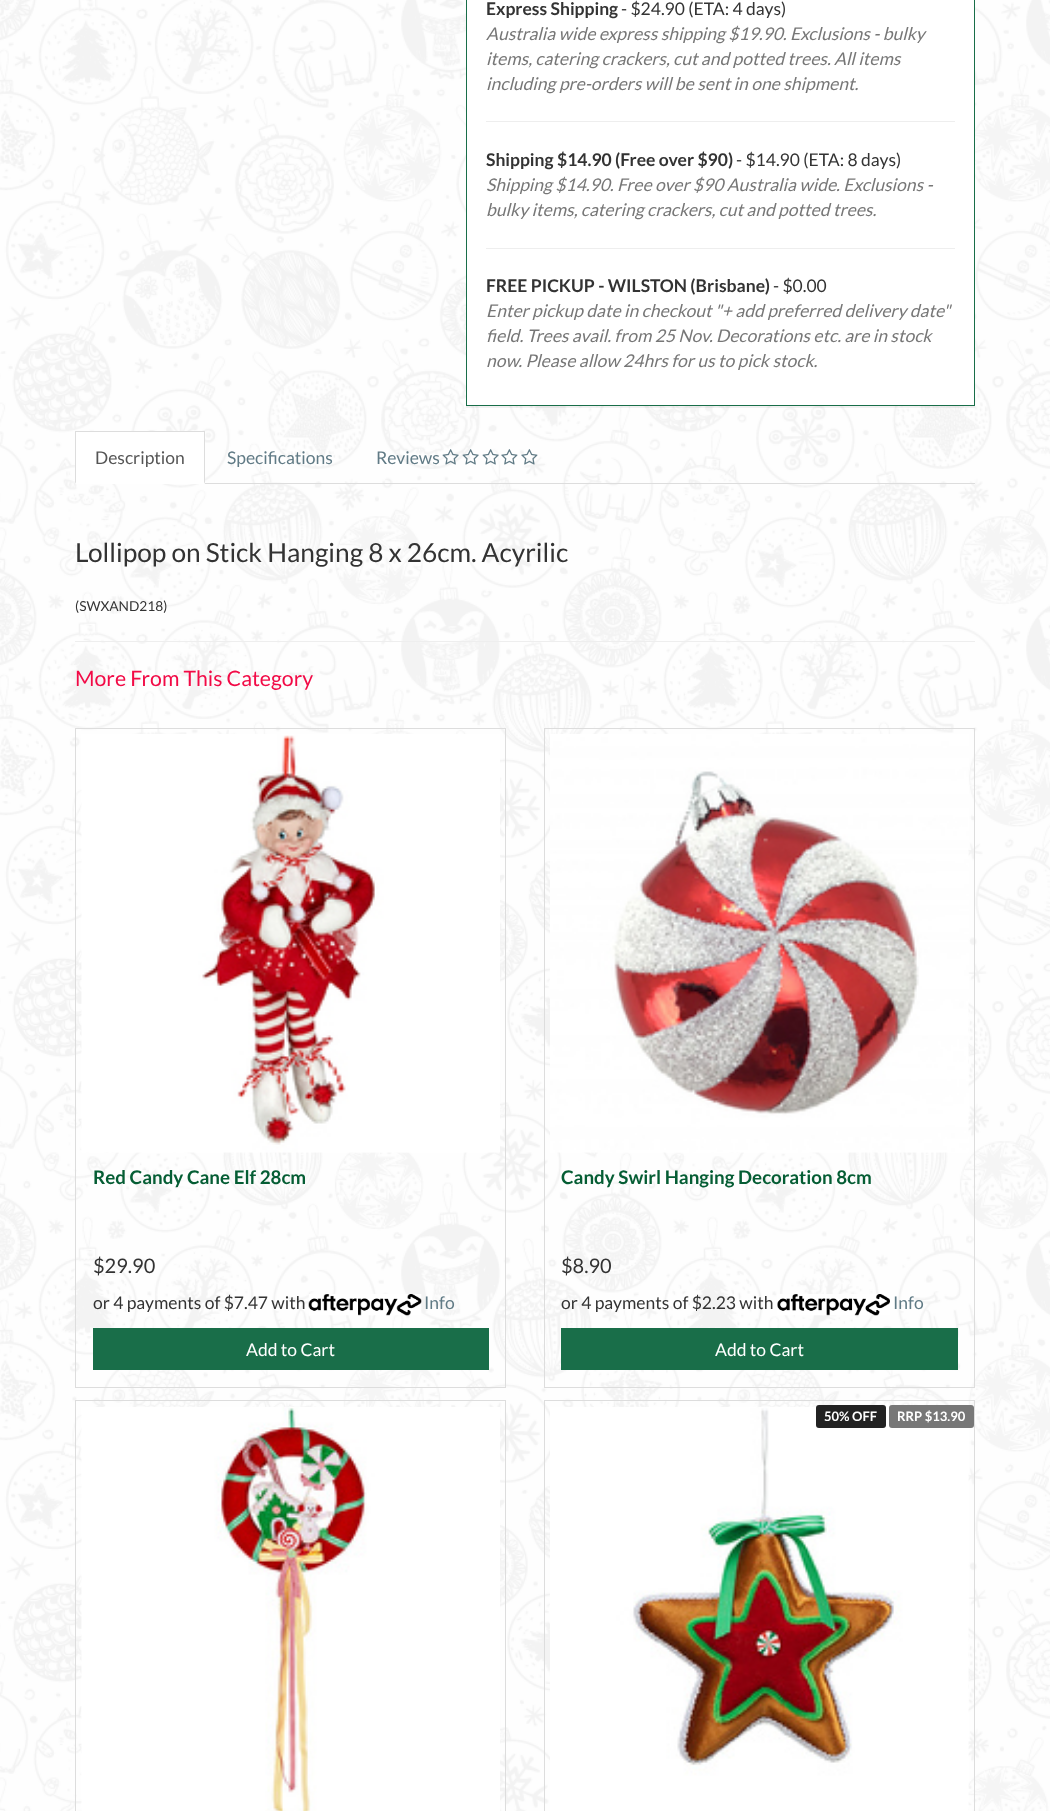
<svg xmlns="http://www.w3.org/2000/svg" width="1050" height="1811">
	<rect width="100%" height="100%" fill="#FFFFFF" />
	<image x="0" y="0" width="1050" height="1811" href="assets/img1.png" />
	<rect x="466" y="-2" width="509" height="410" fill="#000000" fill-opacity="0.05" filter="blur(0.5px)" />
	<rect x="466.5" y="-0.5" width="508" height="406" fill="#FFFFFF" stroke="#196E49" />
	<text x="486" y="15" font-family="Lato" font-size="17.5" font-weight="700" fill="#333333">Express Shipping</text>
	<text x="621" y="15" font-family="Lato" font-size="17.5" fill="#333333">- $24.90 (ETA: 4 days)</text>
	<g font-family="Lato" font-size="17.5" font-style="italic" fill="#777777">
		<text x="486" y="40">Australia wide express shipping $19.90. Exclusions - bulky</text>
		<text x="486" y="65">items, catering crackers, cut and potted trees. All items</text>
		<text x="486" y="90">including pre-orders will be sent in one shipment.</text>
	</g>
	<rect x="486" y="121" width="469" height="1" fill="#EEEEEE" />
	<text x="486" y="166" font-family="Lato" font-size="17.5" font-weight="700" fill="#333333">Shipping $14.90 (Free over $90)</text>
	<text x="736" y="166" font-family="Lato" font-size="17.5" fill="#333333">- $14.90 (ETA: 8 days)</text>
	<g font-family="Lato" font-size="17.5" font-style="italic" fill="#777777">
		<text x="486" y="191">Shipping $14.90. Free over $90 Australia wide. Exclusions -</text>
		<text x="486" y="216">bulky items, catering crackers, cut and potted trees.</text>
	</g>
	<rect x="486" y="248" width="469" height="1" fill="#EEEEEE" />
	<text x="486" y="292" font-family="Lato" font-size="17.5" font-weight="700" fill="#333333">FREE PICKUP - WILSTON (Brisbane)</text>
	<text x="773" y="292" font-family="Lato" font-size="17.5" fill="#333333">- $0.00</text>
	<g font-family="Lato" font-size="17.5" font-style="italic" fill="#777777">
		<text x="486" y="317">Enter pickup date in checkout "+ add preferred delivery date"</text>
		<text x="486" y="342">field. Trees avail. from 25 Nov. Decorations etc. are in stock</text>
		<text x="486" y="367">now. Please allow 24hrs for us to pick stock.</text>
	</g>
	<rect x="205" y="483" width="770" height="1" fill="#DDDDDD" />
	<rect x="75" y="432" width="130" height="52" fill="#FFFFFF" />
	<rect x="75" y="431" width="130" height="1" fill="#DDDDDD" />
	<path d="M205 431V484L204 482V432Z" fill="#DDDDDD" />
	<path d="M75 484V431L76 432V482Z" fill="#DDDDDD" />
	<text x="95" y="464" font-family="Lato" font-size="17.5" fill="#555555">Description</text>
	<g font-family="Lato" font-size="17.5" fill="#607A85">
		<text x="227" y="464">Specifications</text>
		<text x="376" y="464">Reviews</text>
	</g>
	<image x="442" y="449" width="17" height="16" href="assets/img2.png" />
	<image x="462" y="449" width="17" height="16" href="assets/img3.png" />
	<image x="482" y="449" width="17" height="16" href="assets/img4.png" />
	<image x="501" y="449" width="17" height="16" href="assets/img5.png" />
	<image x="521" y="449" width="17" height="16" href="assets/img6.png" />
	<text x="75" y="562" font-family="Lato" font-size="26.25" fill="#333333">Lollipop on Stick Hanging 8 x 26cm. Acyrilic</text>
	<text x="75" y="611" font-family="Lato" font-size="13.75" fill="#333333">(SWXAND218)</text>
	<rect x="75" y="641" width="900" height="1" fill="#EEEEEE" />
	<text x="75" y="686" font-family="Lato" font-size="21.25" fill="#F20A46">More From This Category</text>
	<rect x="75.5" y="728.5" width="430" height="659" fill="none" stroke="#DDDDDD" />
	<image x="81" y="734" width="419" height="419" href="assets/img7.png" />
	<text x="93" y="1184" font-family="Lato" font-size="18.75" font-weight="700" fill="#055D34">Red Candy Cane Elf 28cm</text>
	<text x="93" y="1273" font-family="Lato" font-size="20" fill="#333333">$29.90</text>
	<text x="93" y="1309" font-family="Lato" font-size="17.5" fill="#333333">or 4 payments of $7.47 with</text>
	<image x="308" y="1294" width="114" height="22" href="assets/img8.png" />
	<text x="424" y="1309" font-family="Lato" font-size="17.5" fill="#607A85">Info</text>
	<rect x="93" y="1328" width="396" height="42" fill="#196E49" />
	<text x="246" y="1356" font-family="Lato" font-size="17.5" fill="#FFFFFF">Add to Cart</text>
	<rect x="544.5" y="728.5" width="430" height="659" fill="none" stroke="#DDDDDD" />
	<image x="550" y="734" width="419" height="419" href="assets/img9.png" />
	<text x="561" y="1184" font-family="Lato" font-size="18.75" font-weight="700" fill="#055D34">Candy Swirl Hanging Decoration 8cm</text>
	<text x="561" y="1273" font-family="Lato" font-size="20" fill="#333333">$8.90</text>
	<text x="561" y="1309" font-family="Lato" font-size="17.5" fill="#333333">or 4 payments of $2.23 with</text>
	<image x="777" y="1294" width="113" height="22" href="assets/img10.png" />
	<text x="893" y="1309" font-family="Lato" font-size="17.5" fill="#607A85">Info</text>
	<rect x="561" y="1328" width="397" height="42" fill="#196E49" />
	<text x="715" y="1356" font-family="Lato" font-size="17.5" fill="#FFFFFF">Add to Cart</text>
	<rect x="75.5" y="1400.5" width="430" height="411" fill="none" stroke="#DDDDDD" />
	<image x="81" y="1407" width="419" height="404" href="assets/img11.png" />
	<rect x="544.5" y="1400.5" width="430" height="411" fill="none" stroke="#DDDDDD" />
	<image x="550" y="1407" width="419" height="404" href="assets/img12.png" />
	<rect x="816" y="1405" width="70" height="23" rx="3" fill="#222222" />
	<text x="824" y="1421" font-family="Lato" font-size="13" font-weight="700" fill="#FFFFFF">50% OFF</text>
	<rect x="889" y="1405" width="85" height="23" rx="3" fill="#777777" />
	<text x="897" y="1421" font-family="Lato" font-size="13" font-weight="700" fill="#FFFFFF">RRP $13.90</text>
</svg>
